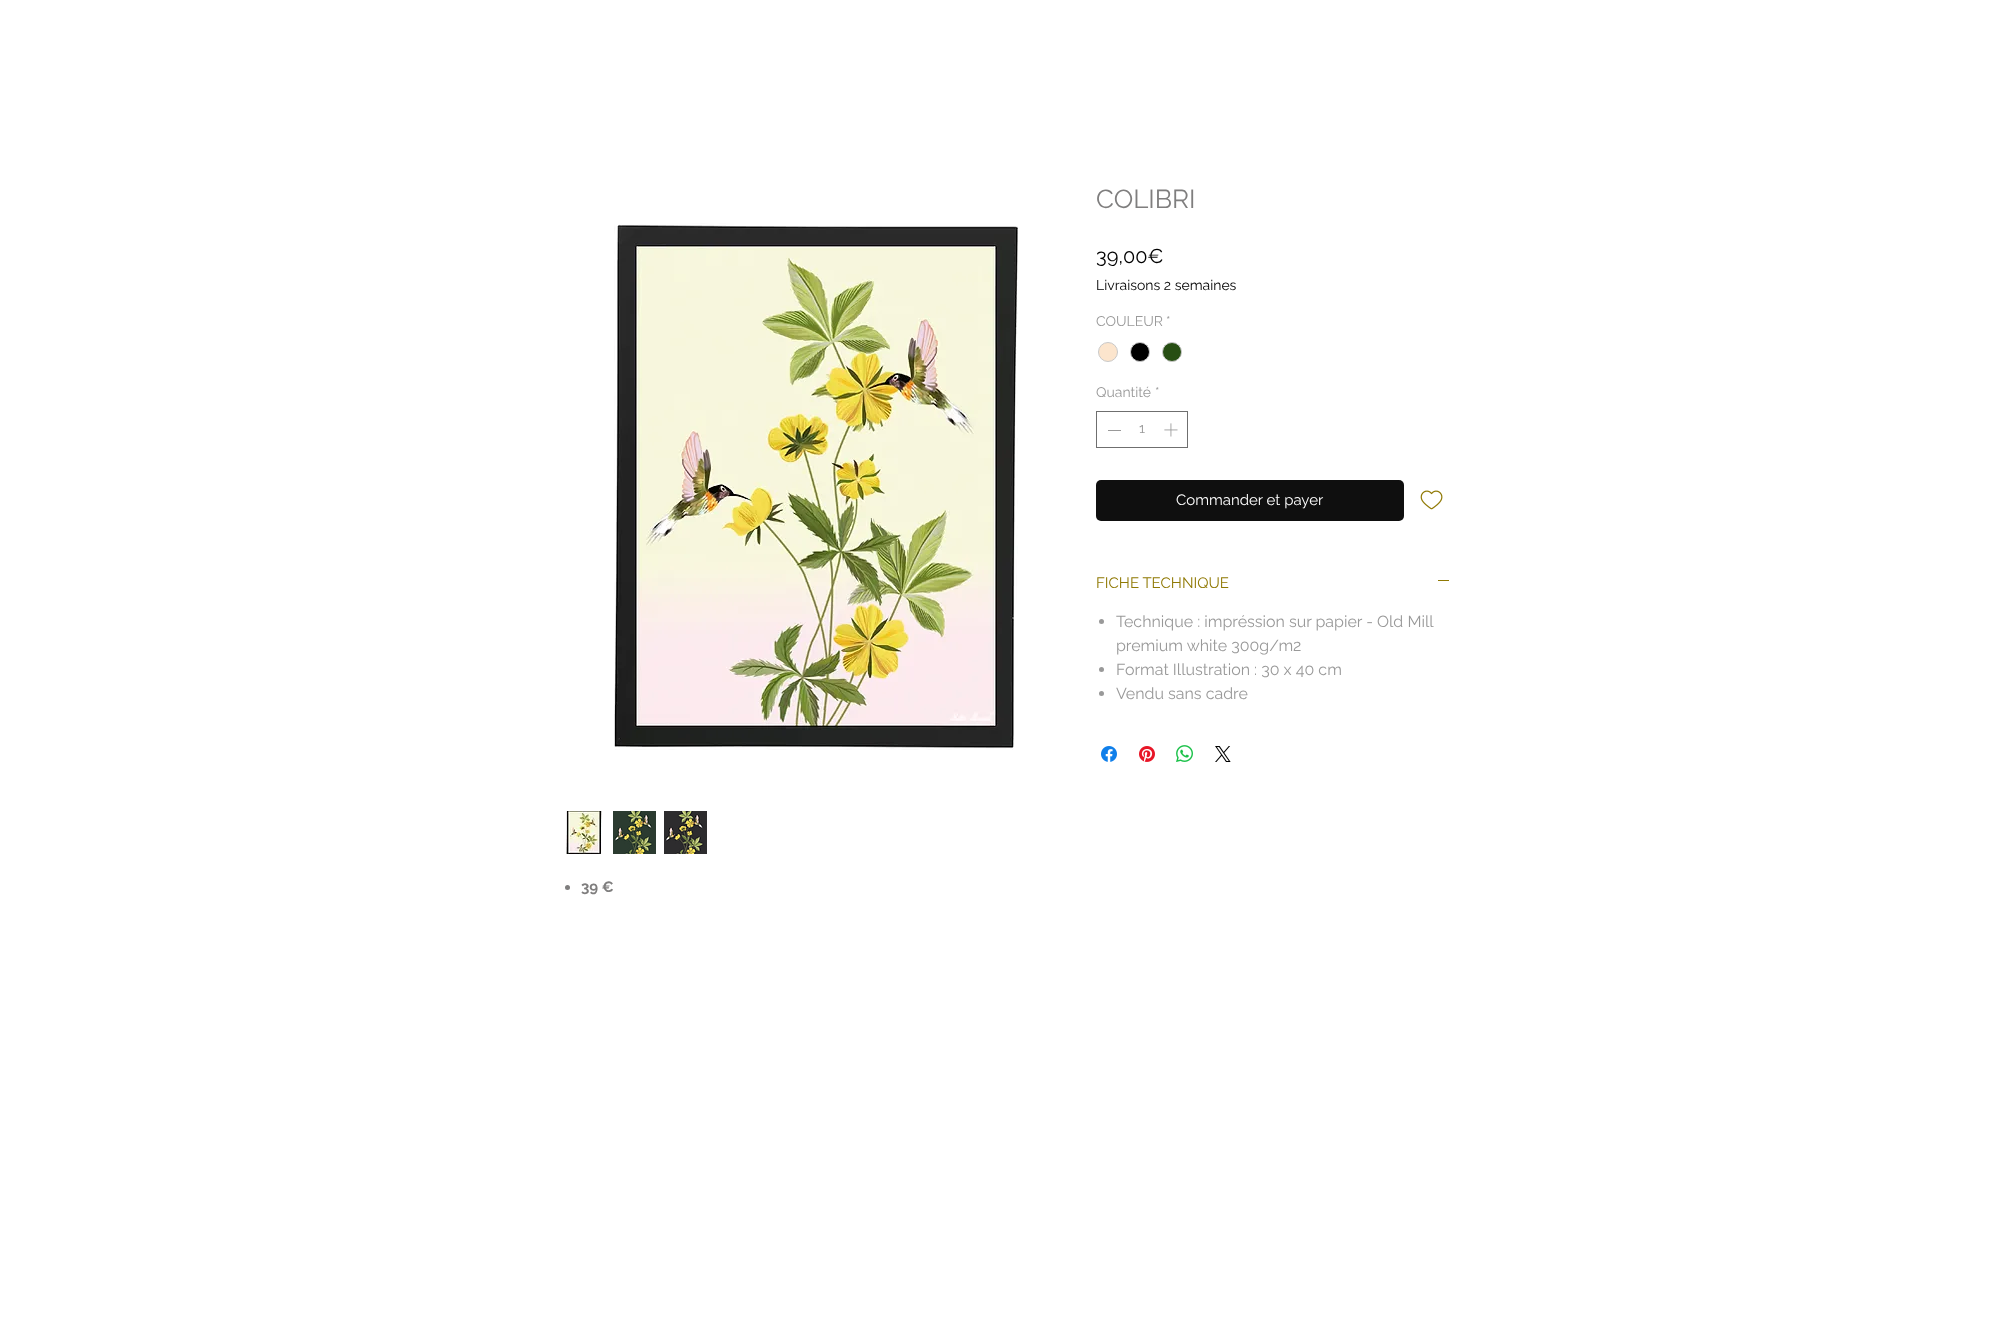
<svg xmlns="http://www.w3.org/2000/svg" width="2011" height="1319">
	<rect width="100%" height="100%" fill="#FFFFFF" />
	<text x="1096" y="208" font-family="Raleway" font-size="26" fill="#7F7E7E">COLIBRI</text>
	<text x="1096" y="263" font-family="Raleway" font-size="20" fill="#000000">39,00€</text>
	<text x="1096" y="290" font-family="Raleway" font-size="14" fill="#000000">Livraisons 2 semaines</text>
	<g font-family="Raleway" font-size="14" fill="#999999">
		<text x="1096" y="326">COULEUR</text>
		<text x="1166" y="326">*</text>
	</g>
	<circle cx="1108" cy="352" r="9.5" fill="#FCE5CD" stroke="#C9C9C9" />
	<circle cx="1140" cy="352" r="9.5" fill="#000000" stroke="#C9C9C9" />
	<circle cx="1172" cy="352" r="9.5" fill="#274E13" stroke="#C9C9C9" />
	<g font-family="Raleway" font-size="14" fill="#999999">
		<text x="1096" y="397">Quantité</text>
		<text x="1155" y="397">*</text>
	</g>
	<rect x="1096.5" y="411.5" width="91" height="36" fill="none" stroke="#6F6F6F" />
	<rect x="1108" y="430" width="13" height="1" fill="#999999" />
	<text x="1139" y="433" font-family="Raleway" font-size="14" fill="#999999">1</text>
	<image x="1164" y="423" width="14" height="14" href="assets/img1.png" />
	<rect x="1096" y="480" width="308" height="41" rx="5" fill="#0F0F0F" />
	<text x="1176" y="505" font-family="Raleway" font-size="15" fill="#FFFFFF">Commander et payer</text>
	<image x="1420" y="490" width="23" height="20" href="assets/img2.png" />
	<text x="1096" y="588" font-family="Raleway" font-size="15" fill="#907904">FICHE TECHNIQUE</text>
	<rect x="1438" y="580" width="11" height="1" fill="#907904" />
	<circle cx="1101.5" cy="621.5" r="2.5" fill="#999999" />
	<g font-family="Raleway" font-size="16" fill="#999999">
		<text x="1116" y="627">Technique : impréssion sur papier - Old Mill</text>
		<text x="1116" y="651">premium white 300g/m2</text>
	</g>
	<circle cx="1101.5" cy="669.5" r="2.5" fill="#999999" />
	<text x="1116" y="675" font-family="Raleway" font-size="16" fill="#999999">Format Illustration : 30 x 40 cm</text>
	<circle cx="1101.5" cy="693.5" r="2.5" fill="#999999" />
	<text x="1116" y="699" font-family="Raleway" font-size="16" fill="#999999">Vendu sans cadre</text>
	<image x="1101" y="746" width="16" height="16" href="assets/img3.png" />
	<image x="1139" y="746" width="16" height="16" href="assets/img4.png" />
	<image x="1176" y="745" width="17" height="17" href="assets/img5.png" />
	<image x="1215" y="746" width="16" height="16" href="assets/img6.png" />
	<image x="614" y="223" width="404" height="527" href="assets/img7.png" />
	<image x="566" y="811" width="36" height="43" href="assets/img8.png" />
	<image x="613" y="811" width="43" height="43" href="assets/img9.png" />
	<image x="664" y="811" width="43" height="43" href="assets/img10.png" />
	<circle cx="567.5" cy="887.5" r="2.5" fill="#7F7E7E" />
	<text x="581" y="892" font-family="Raleway" font-size="15" font-weight="700" fill="#7F7E7E">39 €</text>
</svg>
